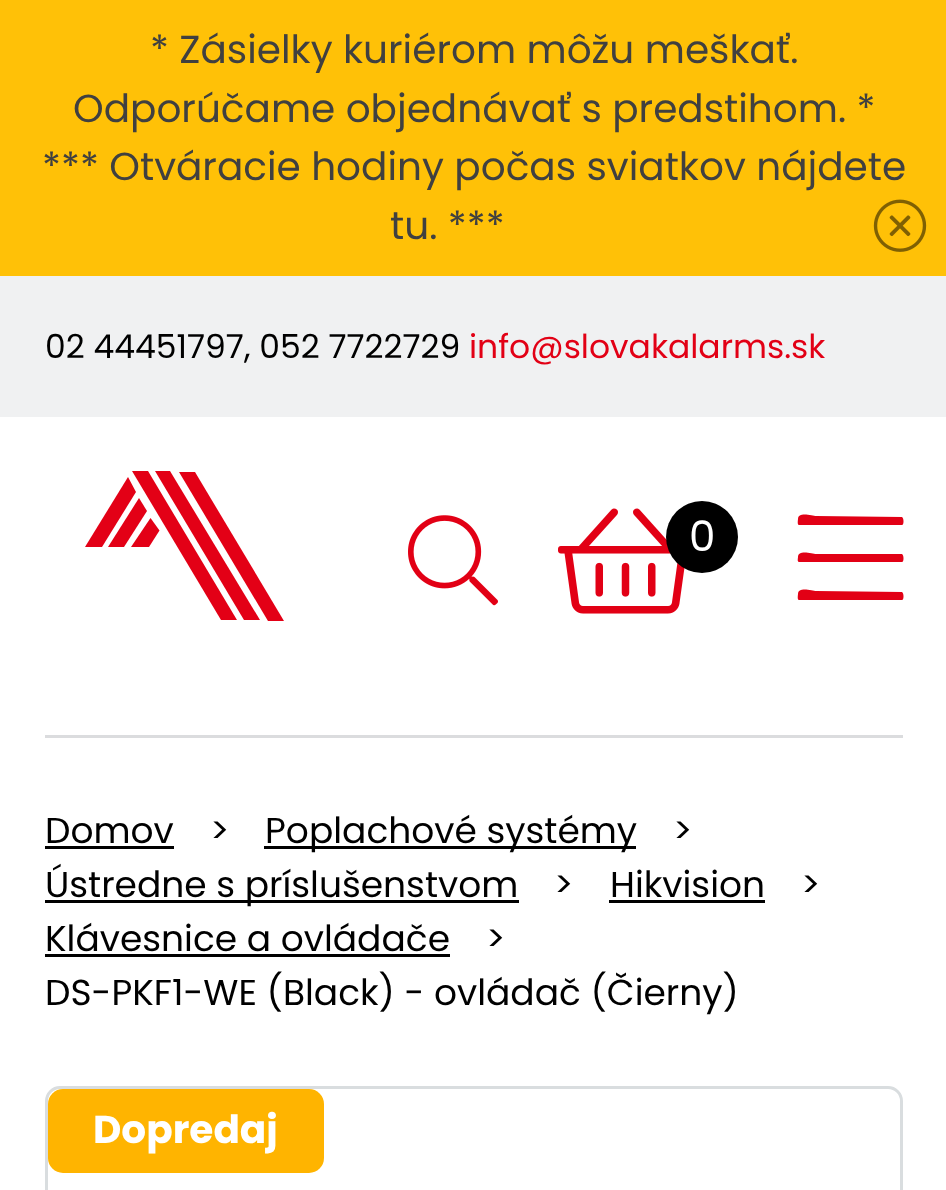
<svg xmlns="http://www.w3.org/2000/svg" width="946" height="1190">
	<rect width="100%" height="100%" fill="#FFFFFF" />
	<rect x="0" y="0" width="946" height="276" fill="#FFC107" />
	<g font-family="Poppins" font-size="39" fill="#404040">
		<text x="150" y="63">* Zásielky kuriérom môžu meškať.</text>
		<text x="73" y="122">Odporúčame objednávať s predstihom. *</text>
		<text x="42" y="180">*** Otváracie hodiny počas sviatkov nájdete</text>
		<text x="390" y="239">tu. ***</text>
	</g>
	<image x="873" y="199" width="54" height="53" href="assets/img1.png" />
	<rect x="0" y="276" width="946" height="141" fill="#F0F1F2" />
	<text x="45" y="358" font-family="Poppins" font-size="33" fill="#000000">02 44451797, 052 7722729</text>
	<text x="469" y="358" font-family="Poppins" font-size="33" fill="#E20015">info@slovakalarms.sk</text>
	<path d="M179 472L268 621H284L195 472Z" fill="#E30016" />
	<path d="M132 471L221 620H237L148 471Z" fill="#E30016" />
	<path d="M155 471L244 620H260L170 471Z" fill="#E30016" />
	<path d="M128 477L85 547H102L136 492Z" fill="#E30016" fill-rule="evenodd" />
	<path d="M139 498L147 511L124 547H108Z" fill="#E30016" fill-rule="evenodd" />
	<path d="M150.5 518L159.5 530.5L149 547H131Z" fill="#E30016" fill-rule="evenodd" />
	<image x="408" y="515" width="90" height="91" href="assets/img2.png" />
	<image x="558" y="508" width="127" height="106" href="assets/img3.png" />
	<circle cx="702" cy="537" r="36" fill="#000000" />
	<text x="689" y="551" font-family="Poppins" font-size="42" fill="#FFFFFF">0</text>
	<path d="M902 525H799C797 525 798 520 798 519C798 511 813 516 816 516L902 517C904 518 904 525 902 525ZM902 562H799C797 562 798 558 798 557C798 549 813 554 816 554H902C904 555 904 562 902 562ZM902 600H799C797 600 798 595 798 594C798 586 813 591 816 591L902 592C904 593 904 600 902 600Z" fill="#E20015" />
	<rect x="45" y="735" width="858" height="3" fill="#DBDCDE" />
	<text x="45" y="843" font-family="Poppins" font-size="36" fill="#000000">Domov</text>
	<rect x="45" y="846" width="129" height="3" fill="#000000" />
	<text x="210" y="843" font-family="Poppins" font-size="36" fill="#000000">&gt;</text>
	<rect x="264" y="846" width="372" height="3" fill="#000000" />
	<g font-family="Poppins" font-size="36" fill="#000000">
		<text x="265" y="843">Poplachové systémy</text>
		<text x="673" y="843">&gt;</text>
	</g>
	<rect x="45" y="900" width="474" height="3" fill="#000000" />
	<g font-family="Poppins" font-size="36" fill="#000000">
		<text x="45" y="897">Ústredne s príslušenstvom</text>
		<text x="554" y="897">&gt;</text>
		<text x="610" y="897">Hikvision</text>
	</g>
	<rect x="609" y="900" width="156" height="3" fill="#000000" />
	<g font-family="Poppins" font-size="36" fill="#000000">
		<text x="801" y="897">&gt;</text>
		<text x="45" y="951">Klávesnice a ovládače</text>
	</g>
	<rect x="45" y="954" width="405" height="3" fill="#000000" />
	<g font-family="Poppins" font-size="36" fill="#000000">
		<text x="486" y="951">&gt;</text>
		<text x="45" y="1005">DS-PKF1-WE (Black) - ovládač (Čierny)</text>
	</g>
	<rect x="46.5" y="1087.5" width="855" height="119" rx="13.5" fill="none" stroke="#D9DDDF" stroke-width="3" />
	<rect x="48" y="1089" width="276" height="84" rx="15" fill="#FFB400" />
	<text x="93" y="1143" font-family="Poppins" font-size="39" font-weight="700" fill="#FFFFFF">Dopredaj</text>
</svg>
